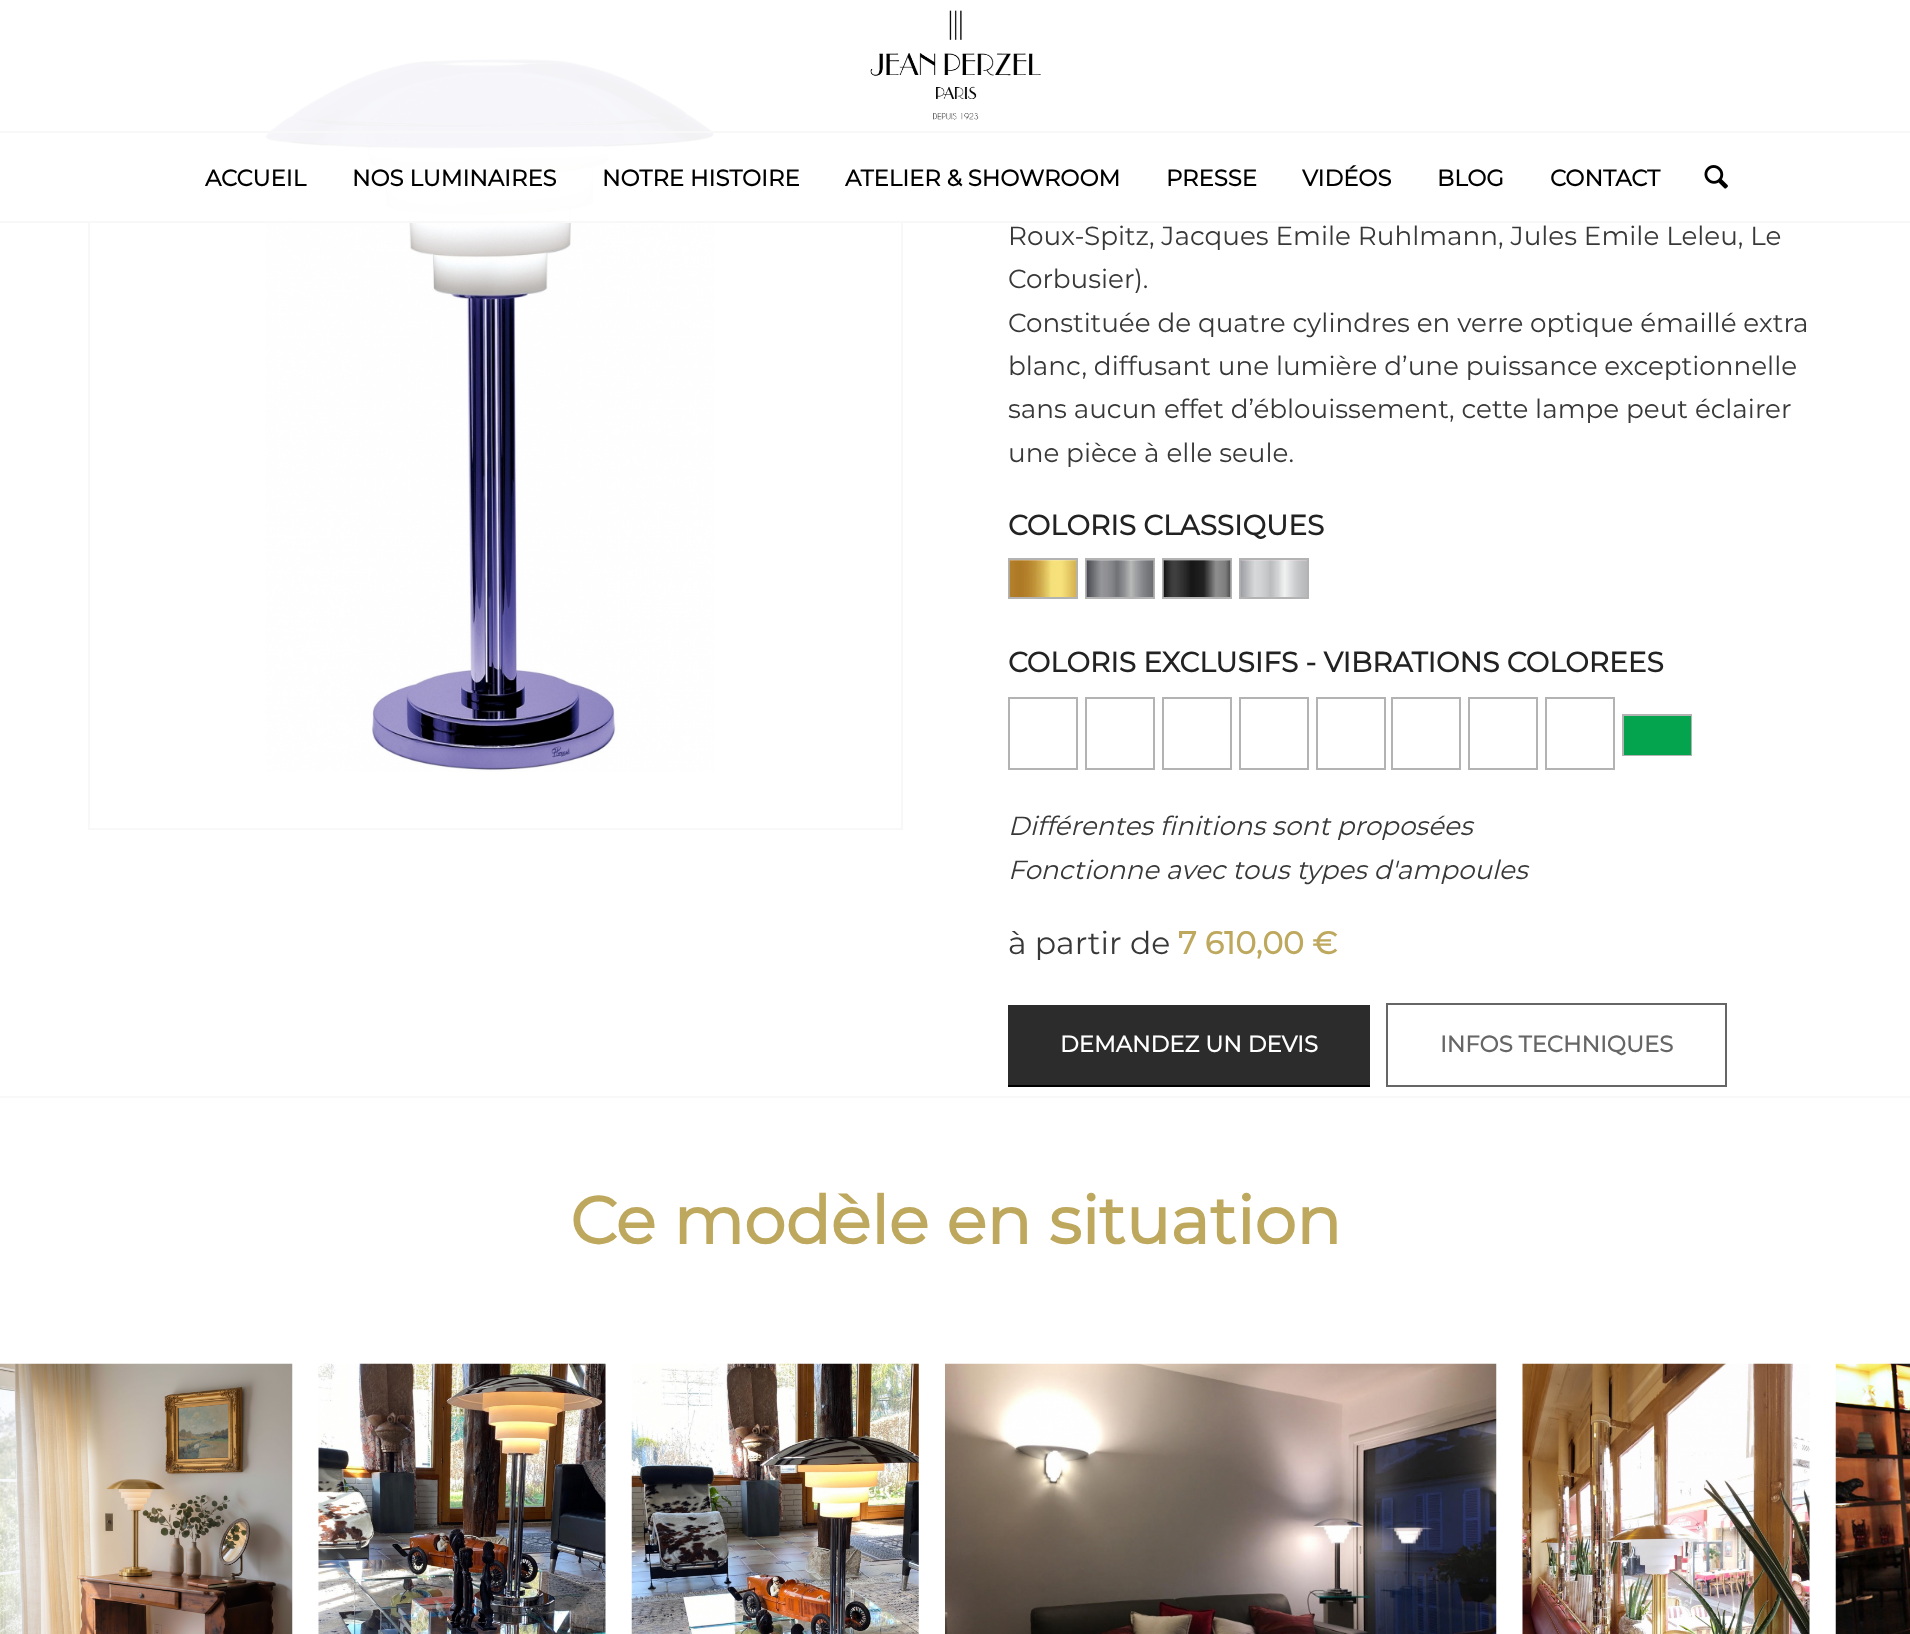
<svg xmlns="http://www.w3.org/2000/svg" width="1910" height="1634">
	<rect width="100%" height="100%" fill="#FFFFFF" />
	<path d="M92 1H899C900.5 1 902 2.5 902 4V829H89V4C89 2.5 90.5 1 92 1Z" fill="none" stroke="#F8F8F8" stroke-width="2" />
	<image x="265" y="58" width="450" height="714" href="assets/img3.png" />
	<rect x="88" y="0" width="815" height="221" fill="#FFFFFF" fill-opacity="0.95" />
	<rect x="0" y="221" width="1910" height="2" fill="#F8F8F8" />
	<image x="870" y="10" width="171" height="110" href="assets/img1.png" />
	<rect x="0" y="131" width="1910" height="2" fill="#F8F8F8" />
	<g font-family="Montserrat" font-size="22.75" font-weight="700" fill="#000000">
		<text x="205" y="186">ACCUEIL</text>
		<text x="352" y="186">NOS LUMINAIRES</text>
		<text x="602" y="186">NOTRE HISTOIRE</text>
		<text x="845" y="186">ATELIER &amp; SHOWROOM</text>
		<text x="1166" y="186">PRESSE</text>
		<text x="1302" y="186">VIDÉOS</text>
		<text x="1437" y="186">BLOG</text>
		<text x="1550" y="186">CONTACT</text>
	</g>
	<image x="1704" y="165" width="24" height="24" href="assets/img2.png" />
	<g font-family="Montserrat" font-size="26.25" font-weight="100" fill="#383838">
		<text x="1008" y="245">Roux-Spitz, Jacques Emile Ruhlmann, Jules Emile Leleu, Le</text>
		<text x="1008" y="288">Corbusier).</text>
		<text x="1008" y="332">Constituée de quatre cylindres en verre optique émaillé extra</text>
		<text x="1008" y="375">blanc, diffusant une lumière d’une puissance exceptionnelle</text>
		<text x="1008" y="418">sans aucun effet d’éblouissement, cette lampe peut éclairer</text>
		<text x="1008" y="462">une pièce à elle seule.</text>
	</g>
	<text x="1008" y="535" font-family="Montserrat" font-size="28" font-weight="700" fill="#222222">COLORIS CLASSIQUES</text>
	<rect x="1009" y="559" width="68" height="39" fill="none" stroke="#B3B3B3" stroke-width="2" />
	<image x="1009" y="560" width="68" height="37" href="assets/img4.png" />
	<rect x="1086" y="559" width="68" height="39" fill="none" stroke="#B3B3B3" stroke-width="2" />
	<image x="1086" y="560" width="68" height="37" href="assets/img5.png" />
	<rect x="1163" y="559" width="68" height="39" fill="none" stroke="#B3B3B3" stroke-width="2" />
	<image x="1163" y="560" width="68" height="37" href="assets/img6.png" />
	<rect x="1240" y="559" width="68" height="39" fill="none" stroke="#B3B3B3" stroke-width="2" />
	<image x="1240" y="560" width="67" height="37" href="assets/img7.png" />
	<text x="1008" y="672" font-family="Montserrat" font-size="28" font-weight="700" fill="#222222">COLORIS EXCLUSIFS - VIBRATIONS COLOREES</text>
	<rect x="1009" y="698" width="68" height="71" fill="none" stroke="#B3B3B3" stroke-width="2" />
	<rect x="1086" y="698" width="68" height="71" fill="none" stroke="#B3B3B3" stroke-width="2" />
	<rect x="1163" y="698" width="68" height="71" fill="none" stroke="#B3B3B3" stroke-width="2" />
	<rect x="1240" y="698" width="68" height="71" fill="none" stroke="#B3B3B3" stroke-width="2" />
	<rect x="1317" y="698" width="68" height="71" fill="none" stroke="#B3B3B3" stroke-width="2" />
	<rect x="1392" y="698" width="68" height="71" fill="none" stroke="#B3B3B3" stroke-width="2" />
	<rect x="1469" y="698" width="68" height="71" fill="none" stroke="#B3B3B3" stroke-width="2" />
	<rect x="1546" y="698" width="68" height="71" fill="none" stroke="#B3B3B3" stroke-width="2" />
	<rect x="1623" y="715" width="68" height="40" fill="none" stroke="#B3B3B3" stroke-width="2" />
	<rect x="1624" y="716" width="67" height="39" fill="#04A44E" />
	<g font-family="Montserrat" font-size="26.25" font-weight="100" font-style="italic" fill="#383838">
		<text x="1008" y="835">Différentes finitions sont proposées</text>
		<text x="1008" y="879">Fonctionne avec tous types d'ampoules</text>
	</g>
	<text x="1008" y="954" font-family="Montserrat" font-size="31.5" font-weight="100" fill="#383838">à partir de</text>
	<text x="1178" y="954" font-family="Montserrat" font-size="31.5" font-weight="700" fill="#BEA85E">7 610,00 €</text>
	<rect x="1008" y="1005" width="362" height="80" fill="#2C2C2C" />
	<rect x="1008" y="1085" width="362" height="2" fill="#000000" />
	<text x="1060" y="1052" font-family="Montserrat" font-size="22.75" font-weight="700" fill="#FFFFFF">DEMANDEZ UN DEVIS</text>
	<rect x="1387" y="1004" width="339" height="82" fill="none" stroke="#666666" stroke-width="2" />
	<text x="1440" y="1052" font-family="Montserrat" font-size="22.75" font-weight="700" fill="#666666">INFOS TECHNIQUES</text>
	<rect x="0" y="1096" width="1910" height="2" fill="#F8F8F8" />
	<text x="570" y="1244" font-family="Montserrat" font-size="66.5" font-weight="700" fill="#BEA85E">Ce modèle en situation</text>
	<image x="0" y="1363" width="293" height="271" href="assets/img8.png" />
	<image x="318" y="1363" width="288" height="271" href="assets/img9.png" />
	<image x="631" y="1363" width="288" height="271" href="assets/img10.png" />
	<image x="945" y="1363" width="552" height="271" href="assets/img11.png" />
	<image x="1522" y="1363" width="288" height="271" href="assets/img12.png" />
	<image x="1835" y="1363" width="75" height="271" href="assets/img13.png" />
</svg>
